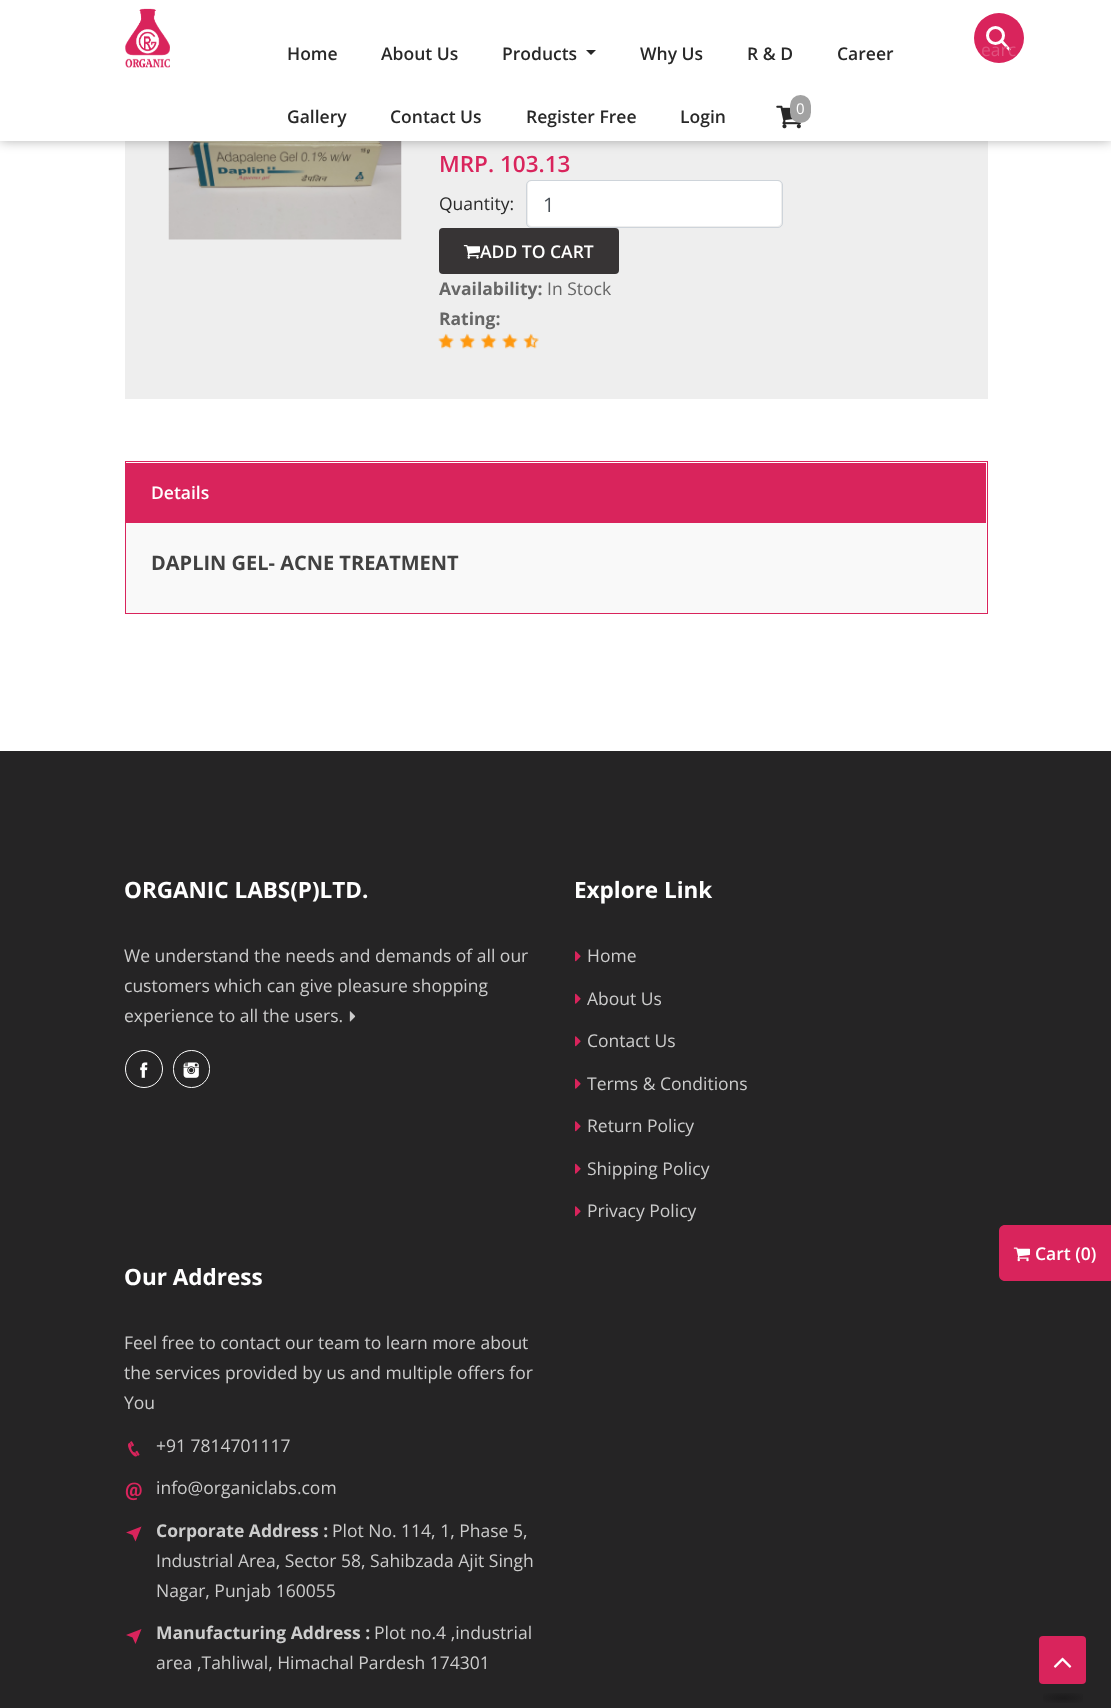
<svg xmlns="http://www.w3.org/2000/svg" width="1111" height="1708">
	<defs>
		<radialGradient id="g1" gradientUnits="userSpaceOnUse" cx="0" cy="0" r="1" gradientTransform="matrix(34 0 0 9 1063 1698)"><stop offset="0" stop-color="#1C1B1C" /><stop offset="0.8" stop-color="#252425" /></radialGradient>
	</defs>
	<rect width="100%" height="100%" fill="#FFFFFF" />
	<rect x="125" y="141" width="863" height="258" fill="#EEEEEE" />
	<image x="168" y="141" width="234" height="99" href="assets/img3.png" />
	<rect x="0" y="0" width="1111" height="141" fill="#000000" fill-opacity="0.3" filter="blur(6px)" />
	<rect x="0" y="0" width="1111" height="141" fill="#FFFFFF" />
	<image x="125" y="8" width="45" height="60" href="assets/img1.png" />
	<g font-family="Open Sans" font-size="17.5" font-weight="600" fill="#282828">
		<text x="287" y="60">Home</text>
		<text x="381" y="60">About Us</text>
		<text x="502" y="60">Products</text>
	</g>
	<path d="M586 50H596L591 55Z" fill="#282828" />
	<g font-family="Open Sans" font-size="17.5" font-weight="600" fill="#282828">
		<text x="640" y="60">Why Us</text>
		<text x="747" y="60">R &amp; D</text>
		<text x="837" y="60">Career</text>
		<text x="287" y="123">Gallery</text>
		<text x="390" y="123">Contact Us</text>
		<text x="526" y="123">Register Free</text>
		<text x="680" y="123">Login</text>
	</g>
	<image x="776" y="105" width="25" height="24" href="assets/img2.png" />
	<rect x="790" y="95" width="21" height="28" rx="10.5" fill="#A2A2A2" />
	<text x="796" y="114" font-family="Open Sans" font-size="15" fill="#FFFFFF">0</text>
	<circle cx="999" cy="38" r="25" fill="#D9245C" />
	<path d="M1002.5 40L1011 49.5L1009 51L1000.5 42Z" fill="#FFFFFF" />
	<circle cx="995.5" cy="35.5" r="8" fill="none" stroke="#FFFFFF" stroke-width="3" />
	<text x="981" y="56" font-family="Open Sans" font-size="17.5" fill="#E1527F">earc</text>
	<text x="439" y="172" font-family="Open Sans" font-size="22.5" font-weight="600" fill="#D9245C">MRP. 103.13</text>
	<text x="439" y="210" font-family="Open Sans" font-size="17.5" fill="#282828">Quantity:</text>
	<rect x="528" y="181" width="253" height="45" rx="4" fill="#FFFFFF" />
	<rect x="526.5" y="180.5" width="256" height="47" rx="4.5" fill="none" stroke="#CED4DA" />
	<text x="543" y="212" font-family="Open Sans" font-size="20" fill="#495057">1</text>
	<rect x="439" y="228" width="180" height="46" rx="4" fill="#373435" />
	<image x="463" y="245" width="17" height="14" href="assets/img4.png" />
	<text x="480" y="258" font-family="Open Sans" font-size="17.5" font-weight="600" fill="#FFFFFF">ADD TO CART</text>
	<text x="439" y="295" font-family="Open Sans" font-size="17.5" font-weight="700" fill="#666666">Availability:</text>
	<text x="547" y="295" font-family="Open Sans" font-size="17.5" fill="#666666">In Stock</text>
	<text x="439" y="325" font-family="Open Sans" font-size="17.5" font-weight="700" fill="#666666">Rating:</text>
	<image x="438" y="333" width="101" height="16" href="assets/img5.png" />
	<rect x="125.5" y="461.5" width="862" height="152" fill="none" stroke="#D9245C" />
	<rect x="126" y="463" width="860" height="60" fill="#D9245C" />
	<text x="151" y="499" font-family="Open Sans" font-size="17.5" font-weight="600" fill="#FFFFFF">Details</text>
	<rect x="126" y="523" width="860" height="90" fill="#F9F9F9" />
	<text x="151" y="570" font-family="Open Sans" font-size="20" font-weight="700" fill="#414141">DAPLIN GEL- ACNE TREATMENT</text>
	<rect x="0" y="751" width="1111" height="957" fill="#252425" />
	<text x="124" y="898" font-family="Open Sans" font-size="22.5" font-weight="700" fill="#FFFFFF">ORGANIC LABS(P)LTD.</text>
	<g font-family="Open Sans" font-size="17.5" fill="#CCCCCC">
		<text x="124" y="962">We understand the needs and demands of all our</text>
		<text x="124" y="992">customers which can give pleasure shopping</text>
		<text x="124" y="1022">experience to all the users.</text>
	</g>
	<image x="349" y="1011" width="7" height="11" href="assets/img6.png" />
	<circle cx="144" cy="1069" r="18.5" fill="none" stroke="#FFFFFF" />
	<image x="140" y="1062" width="8" height="16" href="assets/img7.png" />
	<rect x="173.5" y="1050.5" width="36" height="37" rx="18" fill="none" stroke="#FFFFFF" />
	<image x="183" y="1062" width="16" height="16" href="assets/img8.png" />
	<text x="574" y="898" font-family="Open Sans" font-size="22.5" font-weight="700" fill="#FFFFFF">Explore Link</text>
	<image x="575" y="951" width="6" height="11" href="assets/img9.png" />
	<text x="587" y="962" font-family="Open Sans" font-size="17.5" fill="#CCCCCC">Home</text>
	<image x="575" y="993" width="6" height="11" href="assets/img10.png" />
	<text x="587" y="1005" font-family="Open Sans" font-size="17.5" fill="#CCCCCC">About Us</text>
	<image x="575" y="1036" width="6" height="11" href="assets/img9.png" />
	<text x="587" y="1047" font-family="Open Sans" font-size="17.5" fill="#CCCCCC">Contact Us</text>
	<image x="575" y="1078" width="6" height="11" href="assets/img10.png" />
	<text x="587" y="1090" font-family="Open Sans" font-size="17.5" fill="#CCCCCC">Terms &amp; Conditions</text>
	<image x="575" y="1121" width="6" height="11" href="assets/img9.png" />
	<text x="587" y="1132" font-family="Open Sans" font-size="17.5" fill="#CCCCCC">Return Policy</text>
	<image x="575" y="1163" width="6" height="11" href="assets/img10.png" />
	<text x="587" y="1175" font-family="Open Sans" font-size="17.5" fill="#CCCCCC">Shipping Policy</text>
	<image x="575" y="1206" width="6" height="11" href="assets/img9.png" />
	<text x="587" y="1217" font-family="Open Sans" font-size="17.5" fill="#CCCCCC">Privacy Policy</text>
	<text x="124" y="1285" font-family="Open Sans" font-size="22.5" font-weight="700" fill="#FFFFFF">Our Address</text>
	<g font-family="Open Sans" font-size="17.5" fill="#CCCCCC">
		<text x="124" y="1349">Feel free to contact our team to learn more about</text>
		<text x="124" y="1379">the services provided by us and multiple offers for</text>
		<text x="124" y="1409">You</text>
	</g>
	<image x="128" y="1441" width="12" height="16" href="assets/img11.png" />
	<text x="156" y="1452" font-family="Open Sans" font-size="17.5" fill="#CCCCCC">+91 7814701117</text>
	<image x="125" y="1482" width="17" height="19" href="assets/img12.png" />
	<text x="156" y="1494" font-family="Open Sans" font-size="17.5" fill="#CCCCCC">info@organiclabs.com</text>
	<path d="M141.5 1526.5L135.5 1541.5L132.5 1535L126 1532.5Z" fill="#D9245C" />
	<text x="156" y="1537" font-family="Open Sans" font-size="17.5" font-weight="700" fill="#CCCCCC">Corporate Address :</text>
	<g font-family="Open Sans" font-size="17.5" fill="#CCCCCC">
		<text x="332" y="1537">Plot No. 114, 1, Phase 5,</text>
		<text x="156" y="1567">Industrial Area, Sector 58, Sahibzada Ajit Singh</text>
		<text x="156" y="1597">Nagar, Punjab 160055</text>
	</g>
	<path d="M141.5 1629L135.5 1644L132.5 1637.5L126 1635Z" fill="#D9245C" />
	<text x="156" y="1639" font-family="Open Sans" font-size="17.5" font-weight="700" fill="#CCCCCC">Manufacturing Address :</text>
	<g font-family="Open Sans" font-size="17.5" fill="#CCCCCC">
		<text x="374" y="1639">Plot no.4 ,industrial</text>
		<text x="156" y="1669">area ,Tahliwal, Himachal Pardesh 174301</text>
	</g>
	<path d="M1005 1225H1111V1281H1005C1001.5 1281 999 1278.5 999 1275V1231C999 1227.5 1001.5 1225 1005 1225Z" fill="#D9245C" />
	<image x="1013" y="1247" width="17" height="15" href="assets/img13.png" />
	<text x="1035" y="1260" font-family="Open Sans" font-size="17.5" font-weight="600" fill="#FFFFFF">Cart (0)</text>
	<rect x="1039" y="1636" width="47" height="48" rx="4" fill="#D9245C" />
	<image x="1053" y="1657" width="19" height="11" href="assets/img14.png" />
	<rect x="1043" y="1693" width="40" height="10" fill="url(#g1)" />
</svg>
